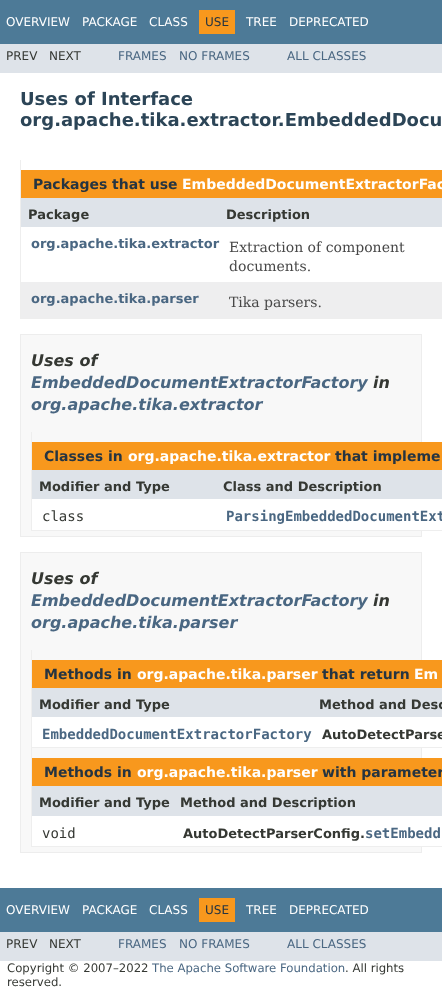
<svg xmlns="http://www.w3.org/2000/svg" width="442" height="1002">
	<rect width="100%" height="100%" fill="#FFFFFF" />
	<rect x="0" y="0" width="442" height="44" fill="#4D7A97" />
	<g font-family="DejaVu Sans" font-size="12" fill="#FFFFFF">
		<text x="6" y="26">OVERVIEW</text>
		<text x="82" y="26">PACKAGE</text>
		<text x="149" y="26">CLASS</text>
	</g>
	<rect x="199" y="10" width="36" height="24" fill="#F8981D" />
	<text x="205" y="26" font-family="DejaVu Sans" font-size="12" fill="#253441">USE</text>
	<g font-family="DejaVu Sans" font-size="12" fill="#FFFFFF">
		<text x="246" y="26">TREE</text>
		<text x="289" y="26">DEPRECATED</text>
	</g>
	<rect x="0" y="44" width="442" height="29" fill="#DEE3E9" />
	<g font-family="DejaVu Sans" font-size="12" fill="#353833">
		<text x="6" y="60">PREV</text>
		<text x="49" y="60">NEXT</text>
	</g>
	<g font-family="DejaVu Sans" font-size="12" fill="#4A6782">
		<text x="118" y="60">FRAMES</text>
		<text x="179" y="60">NO FRAMES</text>
		<text x="287" y="60">ALL CLASSES</text>
	</g>
	<g font-family="DejaVu Sans" font-size="18" font-weight="700" fill="#2C4557">
		<text x="20" y="105">Uses of Interface</text>
		<text x="20" y="126">org.apache.tika.extractor.EmbeddedDocu</text>
	</g>
	<rect x="20" y="318" width="422" height="1" fill="#EEEEEE" />
	<rect x="20" y="160" width="1" height="159" fill="#EEEEEE" />
	<rect x="21" y="170" width="421" height="28" fill="#F8981D" />
	<text x="33" y="189" font-family="DejaVu Sans" font-size="14" font-weight="700" fill="#253441">Packages that use</text>
	<text x="182" y="189" font-family="DejaVu Sans" font-size="14" font-weight="700" fill="#FFFFFF">EmbeddedDocumentExtractorFac</text>
	<rect x="21" y="198" width="421" height="29" fill="#DEE3E9" />
	<g font-family="DejaVu Sans" font-size="13" font-weight="700" fill="#353833">
		<text x="28" y="219">Package</text>
		<text x="226" y="219">Description</text>
	</g>
	<text x="31" y="248" font-family="DejaVu Sans" font-size="13" font-weight="700" fill="#4A6782">org.apache.tika.extractor</text>
	<g font-family="DejaVu Serif" font-size="14" fill="#474747">
		<text x="229" y="252">Extraction of component</text>
		<text x="229" y="271">documents.</text>
	</g>
	<rect x="21" y="282" width="421" height="36" fill="#EEEEEF" />
	<text x="31" y="303" font-family="DejaVu Sans" font-size="13" font-weight="700" fill="#4A6782">org.apache.tika.parser</text>
	<text x="229" y="307" font-family="DejaVu Serif" font-size="14" fill="#474747">Tika parsers.</text>
	<rect x="20.5" y="334.5" width="401" height="202" fill="#F8F8F8" stroke="#EDEDED" />
	<text x="31" y="366" font-family="DejaVu Sans" font-size="16" font-weight="700" font-style="italic" fill="#353833">Uses of</text>
	<text x="31" y="388" font-family="DejaVu Sans" font-size="16" font-weight="700" font-style="italic" fill="#4A6782">EmbeddedDocumentExtractorFactory</text>
	<text x="373" y="388" font-family="DejaVu Sans" font-size="16" font-weight="700" font-style="italic" fill="#353833">in</text>
	<text x="31" y="410" font-family="DejaVu Sans" font-size="16" font-weight="700" font-style="italic" fill="#4A6782">org.apache.tika.extractor</text>
	<rect x="31" y="530" width="411" height="1" fill="#EEEEEE" />
	<rect x="31" y="432" width="1" height="99" fill="#EEEEEE" />
	<rect x="32" y="442" width="410" height="28" fill="#F8981D" />
	<text x="44" y="461" font-family="DejaVu Sans" font-size="14" font-weight="700" fill="#253441">Classes in</text>
	<text x="128" y="461" font-family="DejaVu Sans" font-size="14" font-weight="700" fill="#FFFFFF">org.apache.tika.extractor</text>
	<text x="335" y="461" font-family="DejaVu Sans" font-size="14" font-weight="700" fill="#253441">that impleme</text>
	<rect x="32" y="470" width="410" height="29" fill="#DEE3E9" />
	<g font-family="DejaVu Sans" font-size="13" font-weight="700" fill="#353833">
		<text x="39" y="491">Modifier and Type</text>
		<text x="223" y="491">Class and Description</text>
	</g>
	<rect x="32" y="499" width="390" height="31" fill="#FFFFFF" />
	<text x="42" y="521" font-family="DejaVu Sans Mono" font-size="14" fill="#353833">class</text>
	<text x="226" y="521" font-family="DejaVu Sans Mono" font-size="14" font-weight="700" fill="#4A6782">ParsingEmbeddedDocumentExt</text>
	<rect x="20.5" y="552.5" width="401" height="300" fill="#F8F8F8" stroke="#EDEDED" />
	<text x="31" y="584" font-family="DejaVu Sans" font-size="16" font-weight="700" font-style="italic" fill="#353833">Uses of</text>
	<text x="31" y="606" font-family="DejaVu Sans" font-size="16" font-weight="700" font-style="italic" fill="#4A6782">EmbeddedDocumentExtractorFactory</text>
	<text x="373" y="606" font-family="DejaVu Sans" font-size="16" font-weight="700" font-style="italic" fill="#353833">in</text>
	<text x="31" y="628" font-family="DejaVu Sans" font-size="16" font-weight="700" font-style="italic" fill="#4A6782">org.apache.tika.parser</text>
	<rect x="31" y="747" width="411" height="1" fill="#EEEEEE" />
	<rect x="31" y="650" width="1" height="98" fill="#EEEEEE" />
	<rect x="32" y="660" width="410" height="28" fill="#F8981D" />
	<text x="44" y="679" font-family="DejaVu Sans" font-size="14" font-weight="700" fill="#253441">Methods in</text>
	<text x="137" y="679" font-family="DejaVu Sans" font-size="14" font-weight="700" fill="#FFFFFF">org.apache.tika.parser</text>
	<text x="322" y="679" font-family="DejaVu Sans" font-size="14" font-weight="700" fill="#253441">that return</text>
	<text x="414" y="679" font-family="DejaVu Sans" font-size="14" font-weight="700" fill="#FFFFFF">Em</text>
	<rect x="32" y="688" width="410" height="29" fill="#DEE3E9" />
	<g font-family="DejaVu Sans" font-size="13" font-weight="700" fill="#353833">
		<text x="39" y="709">Modifier and Type</text>
		<text x="319" y="709">Method and Desc</text>
	</g>
	<rect x="32" y="717" width="390" height="30" fill="#FFFFFF" />
	<text x="42" y="739" font-family="DejaVu Sans Mono" font-size="14" font-weight="700" fill="#4A6782">EmbeddedDocumentExtractorFactory</text>
	<text x="322" y="739" font-family="DejaVu Sans" font-size="13" font-weight="700" fill="#353833">AutoDetectParse</text>
	<rect x="31" y="846" width="411" height="1" fill="#EEEEEE" />
	<rect x="31" y="748" width="1" height="99" fill="#EEEEEE" />
	<rect x="32" y="758" width="410" height="28" fill="#F8981D" />
	<text x="44" y="777" font-family="DejaVu Sans" font-size="14" font-weight="700" fill="#253441">Methods in</text>
	<text x="137" y="777" font-family="DejaVu Sans" font-size="14" font-weight="700" fill="#FFFFFF">org.apache.tika.parser</text>
	<text x="322" y="777" font-family="DejaVu Sans" font-size="14" font-weight="700" fill="#253441">with parameter</text>
	<rect x="32" y="786" width="410" height="30" fill="#DEE3E9" />
	<g font-family="DejaVu Sans" font-size="13" font-weight="700" fill="#353833">
		<text x="39" y="807">Modifier and Type</text>
		<text x="180" y="807">Method and Description</text>
	</g>
	<rect x="32" y="816" width="390" height="30" fill="#FFFFFF" />
	<text x="42" y="838" font-family="DejaVu Sans Mono" font-size="14" fill="#353833">void</text>
	<text x="183" y="838" font-family="DejaVu Sans" font-size="13" font-weight="700" fill="#353833">AutoDetectParserConfig.</text>
	<text x="365" y="838" font-family="DejaVu Sans Mono" font-size="14" font-weight="700" fill="#4A6782">setEmbedd</text>
	<rect x="0" y="888" width="442" height="44" fill="#4D7A97" />
	<g font-family="DejaVu Sans" font-size="12" fill="#FFFFFF">
		<text x="6" y="914">OVERVIEW</text>
		<text x="82" y="914">PACKAGE</text>
		<text x="149" y="914">CLASS</text>
	</g>
	<rect x="199" y="898" width="36" height="24" fill="#F8981D" />
	<text x="205" y="914" font-family="DejaVu Sans" font-size="12" fill="#253441">USE</text>
	<g font-family="DejaVu Sans" font-size="12" fill="#FFFFFF">
		<text x="246" y="914">TREE</text>
		<text x="289" y="914">DEPRECATED</text>
	</g>
	<rect x="0" y="932" width="442" height="29" fill="#DEE3E9" />
	<g font-family="DejaVu Sans" font-size="12" fill="#353833">
		<text x="6" y="948">PREV</text>
		<text x="49" y="948">NEXT</text>
	</g>
	<g font-family="DejaVu Sans" font-size="12" fill="#4A6782">
		<text x="118" y="948">FRAMES</text>
		<text x="179" y="948">NO FRAMES</text>
		<text x="287" y="948">ALL CLASSES</text>
	</g>
	<text x="7" y="972" font-family="DejaVu Sans" font-size="11.7" fill="#353833">Copyright © 2007–2022</text>
	<text x="152" y="972" font-family="DejaVu Sans" font-size="11.7" fill="#4A6782">The Apache Software Foundation</text>
	<g font-family="DejaVu Sans" font-size="11.7" fill="#353833">
		<text x="345" y="972">. All rights</text>
		<text x="7" y="986">reserved.</text>
	</g>
</svg>
